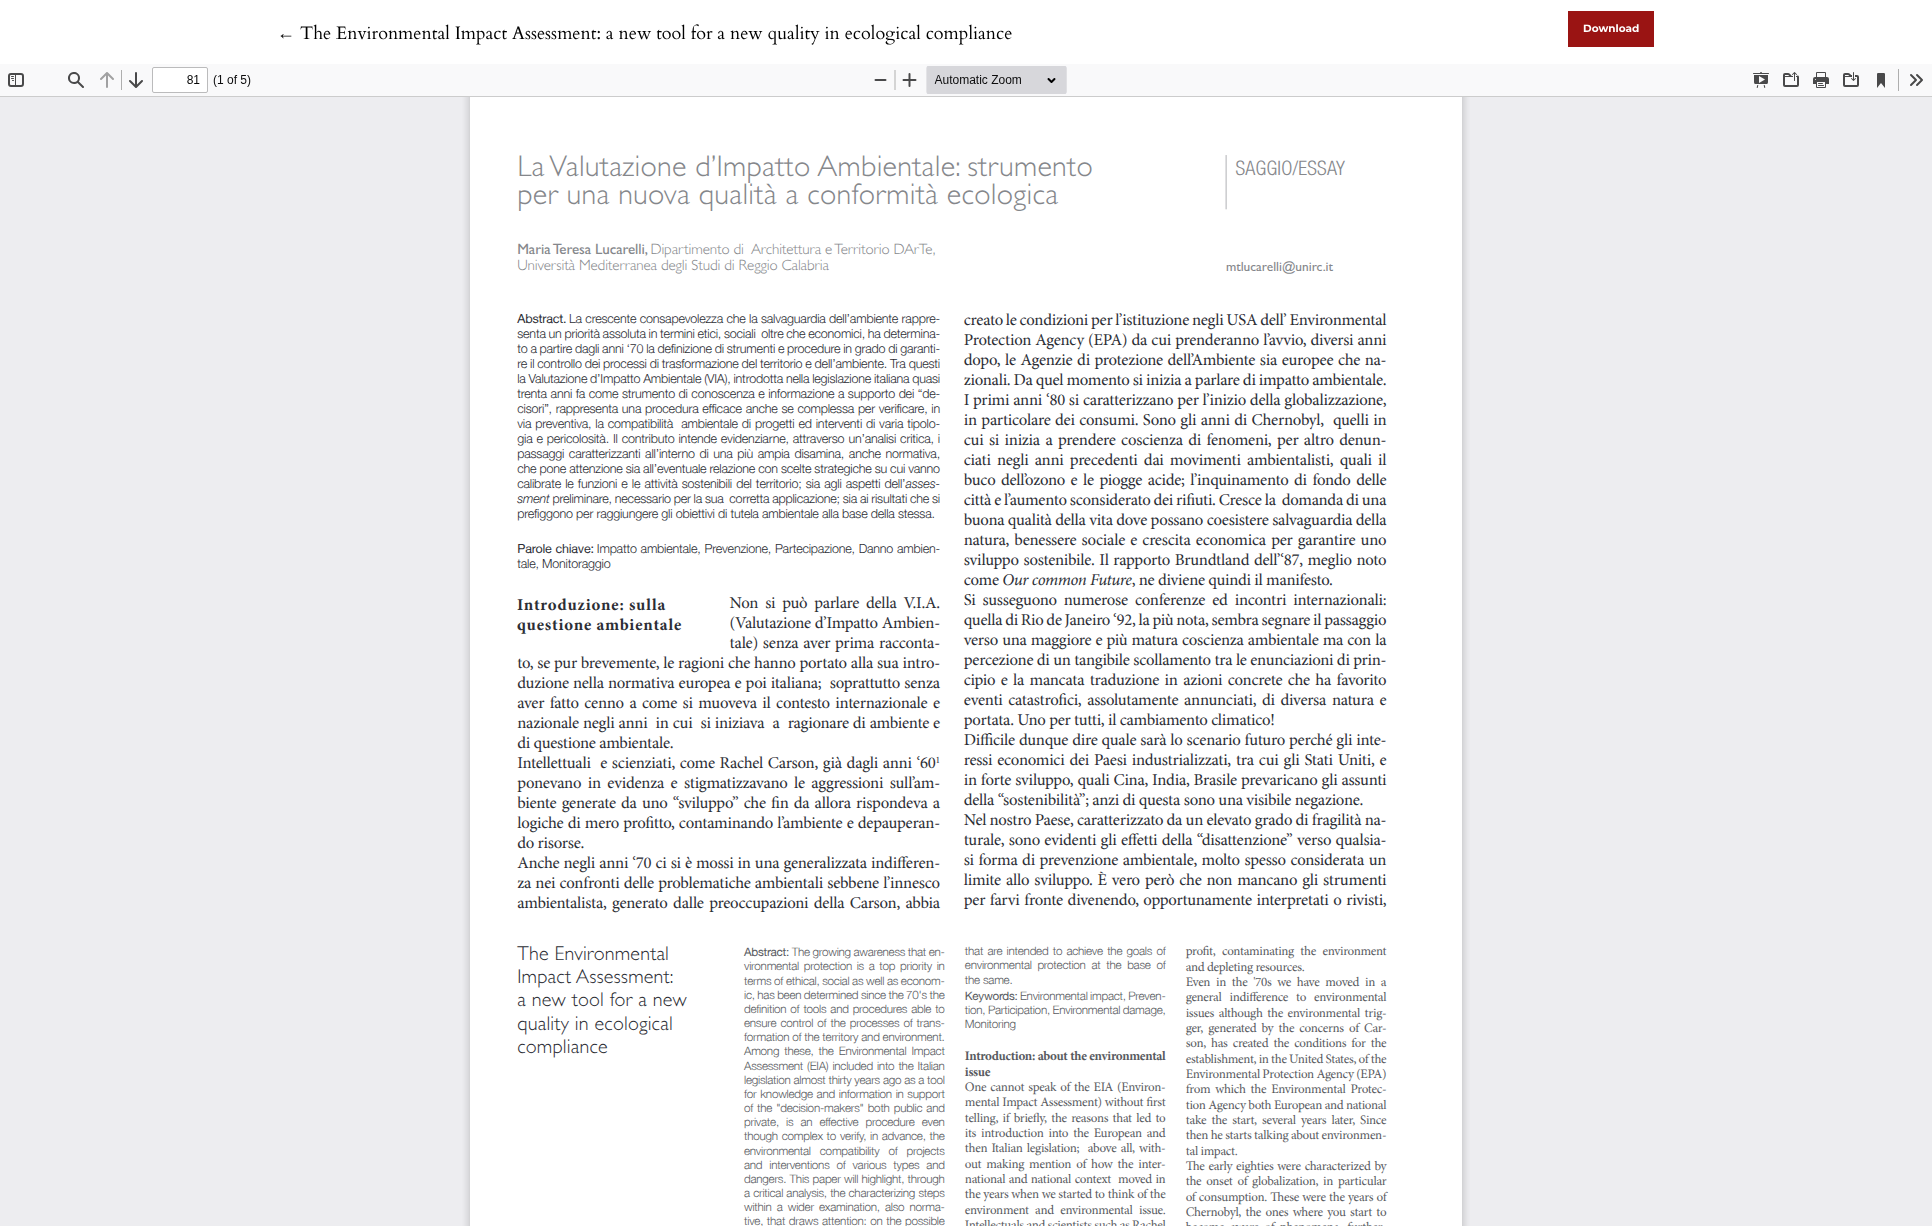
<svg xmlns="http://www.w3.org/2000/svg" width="1932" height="1226">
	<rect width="100%" height="100%" fill="#FFFFFF" />
	<text x="277" y="39" font-family="Liberation Serif" font-size="18" fill="#000000">←</text>
	<text x="300" y="39" font-family="Cardo" font-size="18" fill="#000000">The Environmental Impact Assessment: a new tool for a new quality in ecological compliance</text>
	<rect x="1568" y="11" width="86" height="36" fill="#9A1413" />
	<text x="1583" y="32" font-family="Montserrat" font-size="10.5" font-weight="700" fill="#FFFFFF">Download</text>
	<image x="0" y="64" width="1932" height="1162" href="assets/img1.png" />
</svg>
